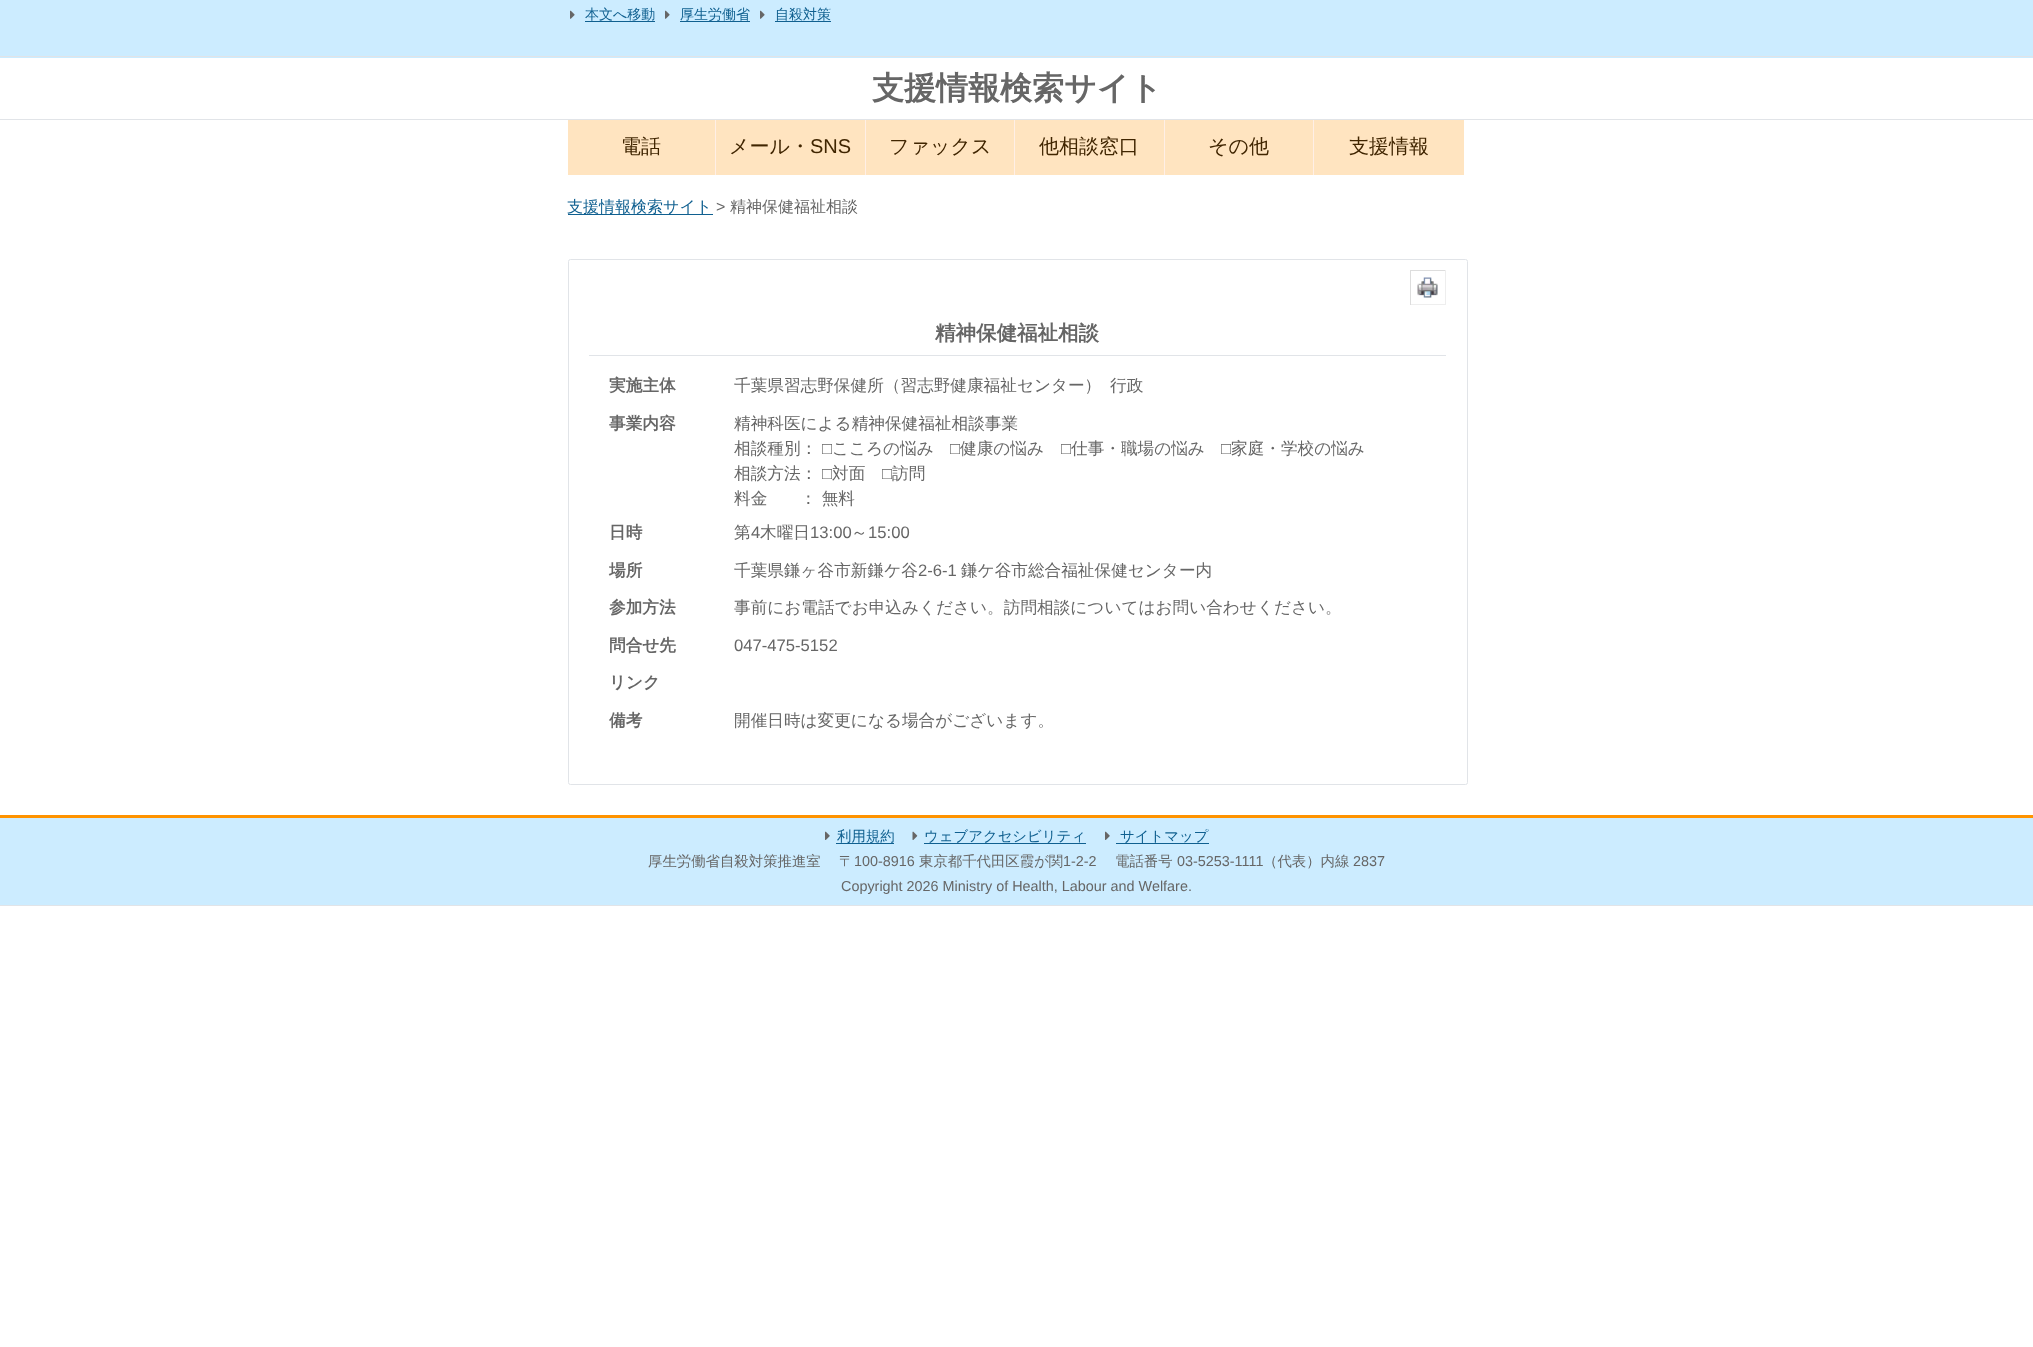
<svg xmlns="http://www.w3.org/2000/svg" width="2033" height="1347">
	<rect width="100%" height="100%" fill="#FFFFFF" />
	<rect x="0" y="0" width="2033" height="58" fill="#CCECFF" />
	<rect x="0" y="56" width="2033" height="1" fill="#E1E4E8" />
	<image x="570" y="10" width="5" height="9" href="assets/img1.png" />
	<text x="585" y="19" font-family="WenQuanYi Zen Hei" font-size="14" font-weight="500" fill="#106090">本文へ移動</text>
	<rect x="585" y="21" width="70" height="1" fill="#106090" />
	<image x="665" y="10" width="5" height="9" href="assets/img1.png" />
	<rect x="680" y="21" width="70" height="1" fill="#106090" />
	<text x="680" y="19" font-family="WenQuanYi Zen Hei" font-size="14" font-weight="500" fill="#106090">厚生労働省</text>
	<image x="760" y="10" width="5" height="9" href="assets/img1.png" />
	<text x="775" y="19" font-family="WenQuanYi Zen Hei" font-size="14" font-weight="500" fill="#106090">自殺対策</text>
	<rect x="775" y="21" width="56" height="1" fill="#106090" />
	<rect x="0" y="119" width="2033" height="1" fill="#E1E4E8" />
	<text x="872" y="99" font-family="WenQuanYi Zen Hei" font-size="32" font-weight="700" fill="#666666">支援情報検索サイト</text>
	<rect x="568" y="120" width="147" height="55" fill="#FFE4C0" />
	<rect x="715" y="120" width="1" height="55" fill="#FFEFE6" />
	<text x="621" y="153" font-family="WenQuanYi Zen Hei" font-size="20" font-weight="500" fill="#402500">電話</text>
	<rect x="716" y="120" width="149" height="55" fill="#FFE4C0" />
	<rect x="865" y="120" width="1" height="55" fill="#FFEFE6" />
	<text x="729" y="153" font-family="WenQuanYi Zen Hei" font-size="20" font-weight="500" fill="#402500">メール・</text>
	<text x="810" y="153" font-family="Liberation Sans" font-size="20" fill="#402500">SNS</text>
	<rect x="866" y="120" width="148" height="55" fill="#FFE4C0" />
	<rect x="1014" y="120" width="1" height="55" fill="#FFEFE6" />
	<text x="889" y="153" font-family="WenQuanYi Zen Hei" font-size="20" font-weight="500" fill="#402500">ファックス</text>
	<rect x="1015" y="120" width="149" height="55" fill="#FFE4C0" />
	<rect x="1164" y="120" width="1" height="55" fill="#FFEFE6" />
	<text x="1039" y="153" font-family="WenQuanYi Zen Hei" font-size="20" font-weight="500" fill="#402500">他相談窓口</text>
	<rect x="1165" y="120" width="148" height="55" fill="#FFE4C0" />
	<rect x="1313" y="120" width="1" height="55" fill="#FFEFE6" />
	<text x="1208" y="153" font-family="WenQuanYi Zen Hei" font-size="20" font-weight="500" fill="#402500">その他</text>
	<rect x="1314" y="120" width="150" height="55" fill="#FFE4C0" />
	<text x="1349" y="153" font-family="WenQuanYi Zen Hei" font-size="20" font-weight="500" fill="#402500">支援情報</text>
	<rect x="568" y="214" width="145" height="1" fill="#106090" />
	<text x="567" y="212" font-family="WenQuanYi Zen Hei" font-size="16" font-weight="500" fill="#106090">支援情報検索サイト</text>
	<text x="716" y="212" font-family="Liberation Sans" font-size="16" fill="#666666">&gt;</text>
	<text x="730" y="212" font-family="WenQuanYi Zen Hei" font-size="16" font-weight="500" fill="#666666">精神保健福祉相談</text>
	<rect x="568.5" y="259.5" width="899" height="525" rx="2" fill="none" stroke="#E1E4E8" />
	<rect x="1410" y="270" width="36" height="1" fill="#DDDDDD" />
	<rect x="1445" y="270" width="1" height="35" fill="#EEEEEE" />
	<rect x="1410" y="304" width="36" height="1" fill="#EEEEEE" />
	<rect x="1410" y="270" width="1" height="35" fill="#DDDDDD" />
	<image x="1417" y="277" width="21" height="21" href="assets/img2.png" />
	<rect x="589" y="355" width="857" height="1" fill="#E1E4E8" />
	<text x="935" y="340" font-family="WenQuanYi Zen Hei" font-size="20.5" font-weight="700" fill="#666666">精神保健福祉相談</text>
	<text x="609" y="391" font-family="WenQuanYi Zen Hei" font-size="16.65" font-weight="700" fill="#666666">実施主体</text>
	<g font-family="WenQuanYi Zen Hei" font-size="16.65" font-weight="500" fill="#666666">
		<text x="734" y="391">千葉県習志野保健所（習志野健康福祉センター）</text>
		<text x="1110" y="391">行政</text>
	</g>
	<text x="609" y="429" font-family="WenQuanYi Zen Hei" font-size="16.65" font-weight="700" fill="#666666">事業内容</text>
	<g font-family="WenQuanYi Zen Hei" font-size="16.65" font-weight="500" fill="#666666">
		<text x="734" y="429">精神科医による精神保健福祉相談事業</text>
		<text x="734" y="454">相談種別：</text>
	</g>
	<text x="822" y="454" font-family="Liberation Sans" font-size="16.65" fill="#666666">□</text>
	<text x="832" y="454" font-family="WenQuanYi Zen Hei" font-size="16.65" font-weight="500" fill="#666666">こころの悩み</text>
	<text x="950" y="454" font-family="Liberation Sans" font-size="16.65" fill="#666666">□</text>
	<text x="960" y="454" font-family="WenQuanYi Zen Hei" font-size="16.65" font-weight="500" fill="#666666">健康の悩み</text>
	<text x="1061" y="454" font-family="Liberation Sans" font-size="16.65" fill="#666666">□</text>
	<text x="1071" y="454" font-family="WenQuanYi Zen Hei" font-size="16.65" font-weight="500" fill="#666666">仕事・職場の悩み</text>
	<text x="1221" y="454" font-family="Liberation Sans" font-size="16.65" fill="#666666">□</text>
	<g font-family="WenQuanYi Zen Hei" font-size="16.65" font-weight="500" fill="#666666">
		<text x="1231" y="454">家庭・学校の悩み</text>
		<text x="734" y="479">相談方法：</text>
	</g>
	<text x="822" y="479" font-family="Liberation Sans" font-size="16.65" fill="#666666">□</text>
	<text x="832" y="479" font-family="WenQuanYi Zen Hei" font-size="16.65" font-weight="500" fill="#666666">対面</text>
	<text x="882" y="479" font-family="Liberation Sans" font-size="16.65" fill="#666666">□</text>
	<g font-family="WenQuanYi Zen Hei" font-size="16.65" font-weight="500" fill="#666666">
		<text x="892" y="479">訪問</text>
		<text x="734" y="504">料金</text>
		<text x="800" y="504">： 無料</text>
	</g>
	<text x="609" y="538" font-family="WenQuanYi Zen Hei" font-size="16.65" font-weight="700" fill="#666666">日時</text>
	<text x="734" y="538" font-family="WenQuanYi Zen Hei" font-size="16.65" font-weight="500" fill="#666666">第</text>
	<text x="751" y="538" font-family="Liberation Sans" font-size="16.65" fill="#666666">4</text>
	<text x="760" y="538" font-family="WenQuanYi Zen Hei" font-size="16.65" font-weight="500" fill="#666666">木曜日</text>
	<text x="810" y="538" font-family="Liberation Sans" font-size="16.65" fill="#666666">13:00</text>
	<text x="851" y="538" font-family="WenQuanYi Zen Hei" font-size="16.65" font-weight="500" fill="#666666">～</text>
	<text x="868" y="538" font-family="Liberation Sans" font-size="16.65" fill="#666666">15:00</text>
	<text x="609" y="576" font-family="WenQuanYi Zen Hei" font-size="16.65" font-weight="700" fill="#666666">場所</text>
	<text x="734" y="576" font-family="WenQuanYi Zen Hei" font-size="16.65" font-weight="500" fill="#666666">千葉県鎌ヶ谷市新鎌ケ谷</text>
	<text x="918" y="576" font-family="Liberation Sans" font-size="16.65" fill="#666666">2-6-1</text>
	<text x="961" y="576" font-family="WenQuanYi Zen Hei" font-size="16.65" font-weight="500" fill="#666666">鎌ケ谷市総合福祉保健センター内</text>
	<text x="609" y="613" font-family="WenQuanYi Zen Hei" font-size="16.65" font-weight="700" fill="#666666">参加方法</text>
	<text x="734" y="613" font-family="WenQuanYi Zen Hei" font-size="16.65" font-weight="500" fill="#666666">事前にお電話でお申込みください。訪問相談についてはお問い合わせください。</text>
	<text x="609" y="651" font-family="WenQuanYi Zen Hei" font-size="16.65" font-weight="700" fill="#666666">問合せ先</text>
	<text x="734" y="651" font-family="Liberation Sans" font-size="16.65" fill="#666666">047-475-5152</text>
	<g font-family="WenQuanYi Zen Hei" font-size="16.65" font-weight="700" fill="#666666">
		<text x="609" y="688">リンク</text>
		<text x="609" y="726">備考</text>
	</g>
	<text x="734" y="726" font-family="WenQuanYi Zen Hei" font-size="16.65" font-weight="500" fill="#666666">開催日時は変更になる場合がございます。</text>
	<rect x="0" y="818" width="2033" height="87" fill="#CCECFF" />
	<rect x="0" y="905" width="2033" height="1" fill="#E1E4E8" />
	<rect x="0" y="815" width="2033" height="3" fill="#FF9300" />
	<image x="825" y="831" width="5" height="9" href="assets/img3.png" />
	<rect x="836" y="843" width="58" height="1" fill="#106090" />
	<text x="837" y="841" font-family="WenQuanYi Zen Hei" font-size="14.4" font-weight="500" fill="#106090">利用規約</text>
	<image x="912" y="831" width="6" height="9" href="assets/img4.png" />
	<text x="924" y="841" font-family="WenQuanYi Zen Hei" font-size="14.4" font-weight="500" fill="#106090">ウェブアクセシビリティ</text>
	<rect x="924" y="843" width="162" height="1" fill="#106090" />
	<image x="1105" y="831" width="5" height="9" href="assets/img3.png" />
	<rect x="1116" y="843" width="93" height="1" fill="#106090" />
	<text x="1120" y="841" font-family="WenQuanYi Zen Hei" font-size="14.4" font-weight="500" fill="#106090">サイトマップ</text>
	<g font-family="WenQuanYi Zen Hei" font-size="14.4" font-weight="500" fill="#666666">
		<text x="648" y="866">厚生労働省自殺対策推進室</text>
		<text x="839" y="866">〒</text>
	</g>
	<text x="854" y="866" font-family="Liberation Sans" font-size="14.4" fill="#666666">100-8916</text>
	<text x="919" y="866" font-family="WenQuanYi Zen Hei" font-size="14.4" font-weight="500" fill="#666666">東京都千代田区霞が関</text>
	<text x="1063" y="866" font-family="Liberation Sans" font-size="14.4" fill="#666666">1-2-2</text>
	<text x="1115" y="866" font-family="WenQuanYi Zen Hei" font-size="14.4" font-weight="500" fill="#666666">電話番号</text>
	<text x="1177" y="866" font-family="Liberation Sans" font-size="14.4" fill="#666666">03-5253-1111</text>
	<text x="1263" y="866" font-family="WenQuanYi Zen Hei" font-size="14.4" font-weight="500" fill="#666666">（代表）内線</text>
	<g font-family="Liberation Sans" font-size="14.4" fill="#666666">
		<text x="1353" y="866">2837</text>
		<text x="841" y="891">Copyright 2026 Ministry of Health, Labour and Welfare.</text>
	</g>
</svg>
